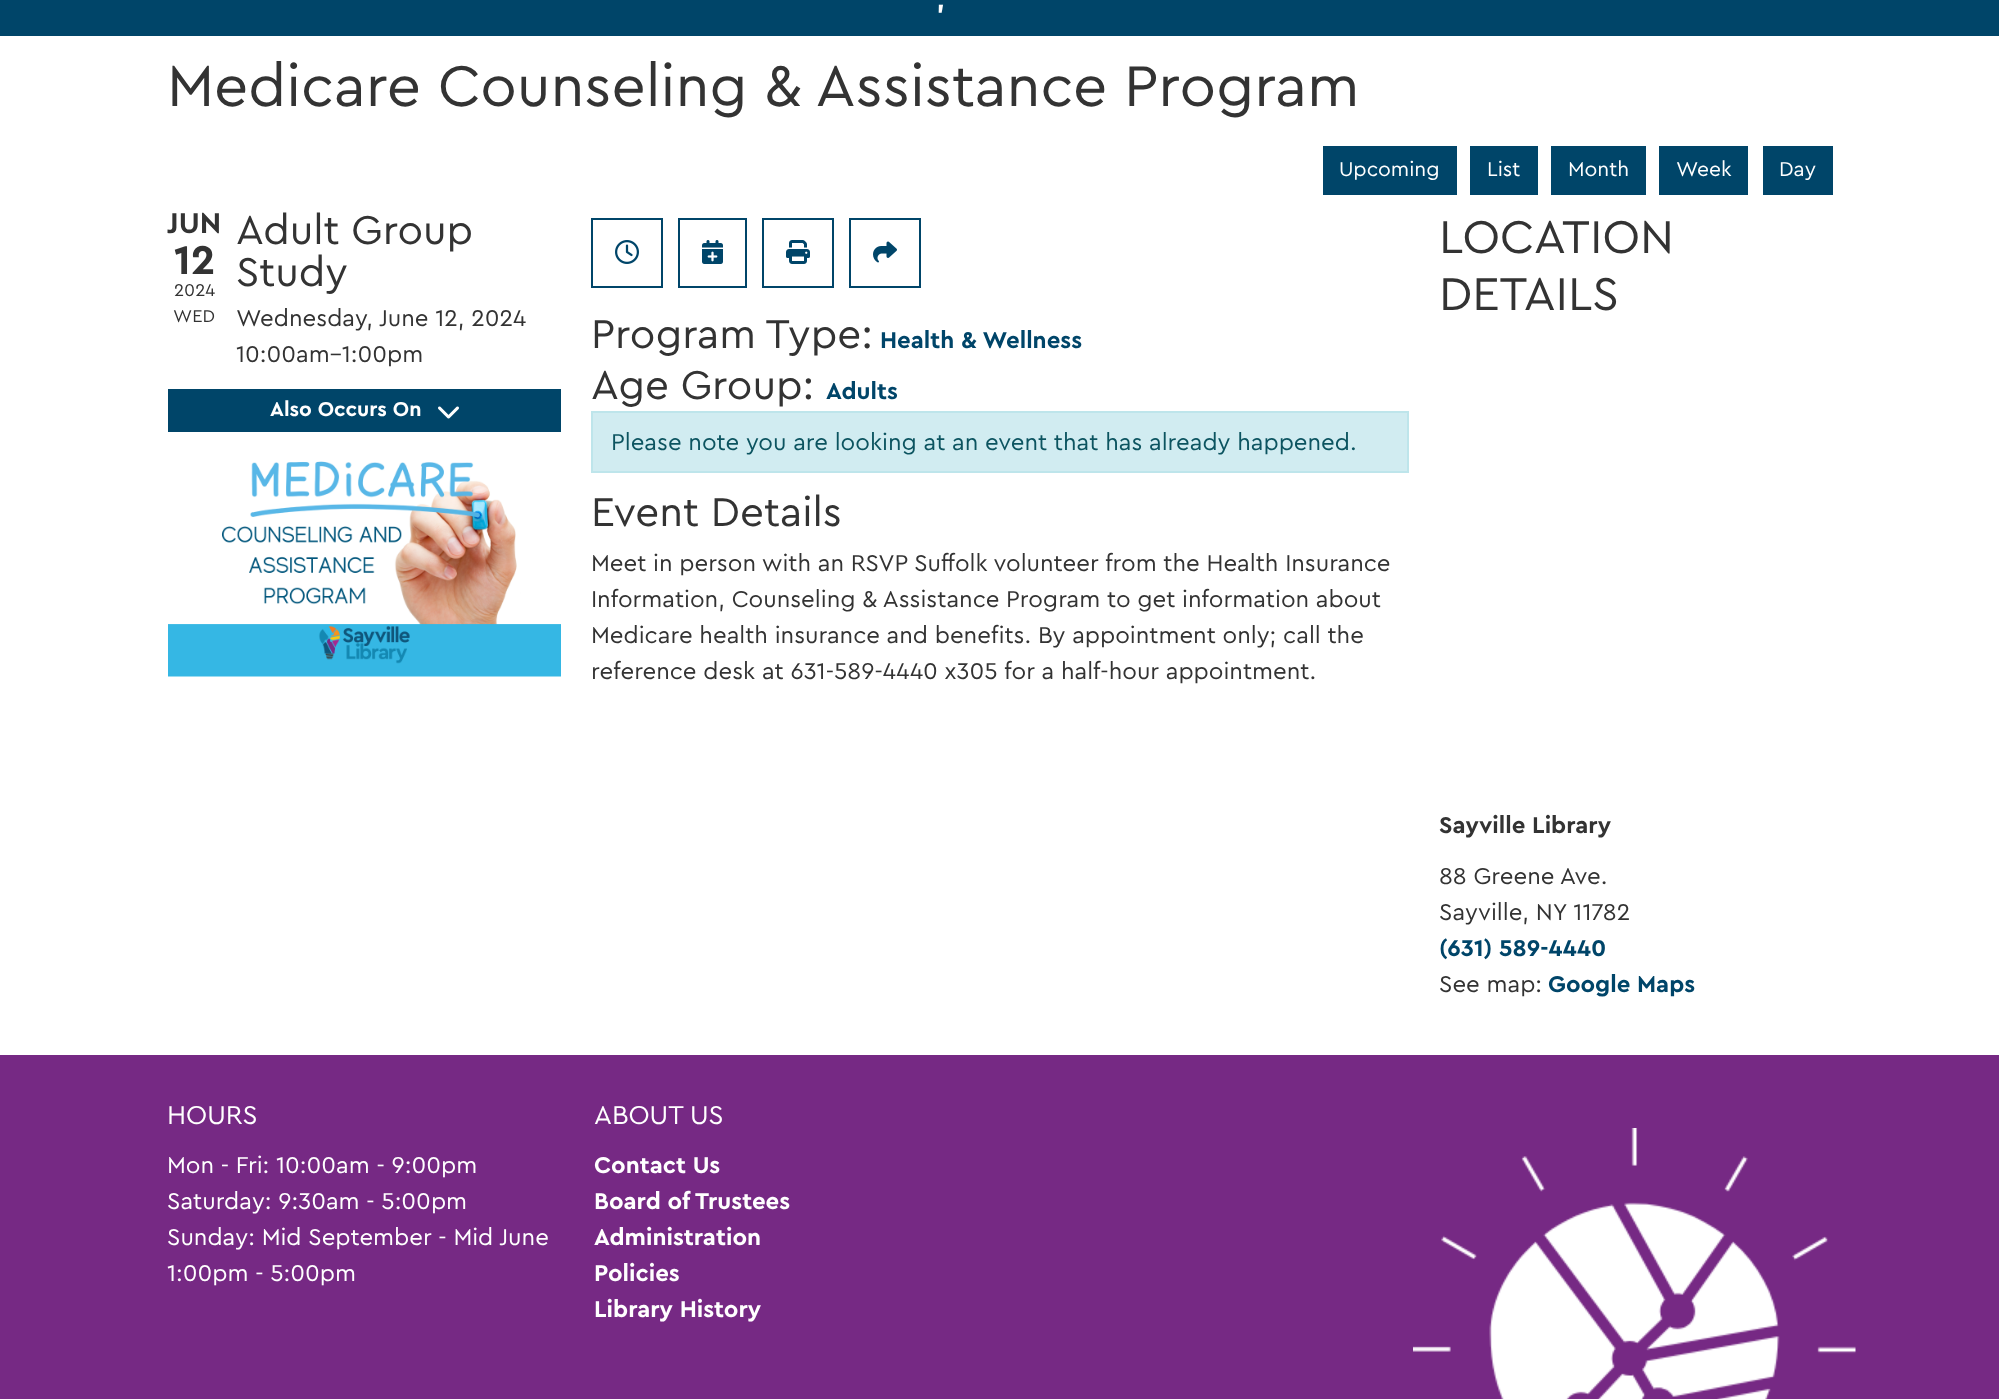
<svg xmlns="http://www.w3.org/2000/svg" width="1999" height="1399">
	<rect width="100%" height="100%" fill="#FFFFFF" />
	<rect x="0" y="0" width="1999" height="36" fill="#004569" />
	<text x="937" y="8" font-family="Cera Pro" font-size="27" font-weight="700" fill="#FFFFFF">,</text>
	<text x="167" y="106" font-family="Cera Pro" font-size="60" fill="#333333">Medicare Counseling &amp; Assistance Program</text>
	<rect x="1323" y="146" width="134" height="49" fill="#004569" />
	<text x="1339" y="176" font-family="Cera Pro" font-size="21" fill="#FFFFFF">Upcoming</text>
	<rect x="1470" y="146" width="68" height="49" fill="#004569" />
	<text x="1487" y="176" font-family="Cera Pro" font-size="21" fill="#FFFFFF">List</text>
	<rect x="1551" y="146" width="95" height="49" fill="#004569" />
	<text x="1568" y="176" font-family="Cera Pro" font-size="21" fill="#FFFFFF">Month</text>
	<rect x="1659" y="146" width="89" height="49" fill="#004569" />
	<text x="1676" y="176" font-family="Cera Pro" font-size="21" fill="#FFFFFF">Week</text>
	<rect x="1763" y="146" width="70" height="49" fill="#004569" />
	<text x="1779" y="176" font-family="Cera Pro" font-size="21" fill="#FFFFFF">Day</text>
	<text x="167" y="233" font-family="Cera Pro" font-size="30" font-weight="700" fill="#333333">JUN</text>
	<text x="174" y="274" font-family="Cera Pro" font-size="42" font-weight="700" fill="#333333">12</text>
	<g font-family="Cera Pro" font-size="18" fill="#333333">
		<text x="174" y="296">2024</text>
		<text x="173" y="322">WED</text>
	</g>
	<g font-family="Cera Pro" font-size="42" fill="#333333">
		<text x="236" y="244">Adult Group</text>
		<text x="236" y="286">Study</text>
	</g>
	<g font-family="Cera Pro" font-size="24" fill="#333333">
		<text x="236" y="326">Wednesday, June 12, 2024</text>
		<text x="236" y="362">10:00am–1:00pm</text>
	</g>
	<rect x="168" y="389" width="393" height="43" fill="#004569" />
	<text x="270" y="416" font-family="Cera Pro" font-size="21" font-weight="700" fill="#FFFFFF">Also Occurs On</text>
	<image x="438" y="406" width="21" height="13" href="assets/img1.png" />
	<image x="168" y="461" width="393" height="216" href="assets/img2.png" />
	<rect x="592" y="219" width="70" height="68" fill="none" stroke="#004569" stroke-width="2" />
	<image x="615" y="240" width="24" height="24" href="assets/img3.png" />
	<rect x="679" y="219" width="67" height="68" fill="none" stroke="#004569" stroke-width="2" />
	<image x="702" y="240" width="21" height="24" href="assets/img4.png" />
	<rect x="763" y="219" width="70" height="68" fill="none" stroke="#004569" stroke-width="2" />
	<image x="786" y="240" width="24" height="24" href="assets/img5.png" />
	<rect x="850" y="219" width="70" height="68" fill="none" stroke="#004569" stroke-width="2" />
	<image x="873" y="241" width="24" height="22" href="assets/img6.png" />
	<text x="591" y="348" font-family="Cera Pro" font-size="42" fill="#333333">Program Type:</text>
	<text x="880" y="348" font-family="Cera Pro" font-size="24" font-weight="700" fill="#004569">Health &amp; Wellness</text>
	<text x="591" y="399" font-family="Cera Pro" font-size="42" fill="#333333">Age Group:</text>
	<text x="826" y="399" font-family="Cera Pro" font-size="24" font-weight="700" fill="#004569">Adults</text>
	<rect x="592" y="412" width="816" height="60" fill="#D1ECF1" stroke="#BEE5EB" stroke-width="2" />
	<text x="611" y="450" font-family="Cera Pro" font-size="24" fill="#0C5460">Please note you are looking at an event that has already happened.</text>
	<text x="591" y="526" font-family="Cera Pro" font-size="42" fill="#333333">Event Details</text>
	<g font-family="Cera Pro" font-size="24" fill="#333333">
		<text x="591" y="571">Meet in person with an RSVP Suffolk volunteer from the Health Insurance</text>
		<text x="591" y="607">Information, Counseling &amp; Assistance Program to get information about</text>
		<text x="591" y="643">Medicare health insurance and benefits. By appointment only; call the</text>
		<text x="591" y="679">reference desk at 631-589-4440 x305 for a half-hour appointment.</text>
	</g>
	<g font-family="Cera Pro" font-size="48" fill="#333333">
		<text x="1439" y="253">LOCATION</text>
		<text x="1439" y="310">DETAILS</text>
	</g>
	<text x="1439" y="833" font-family="Cera Pro" font-size="24" font-weight="700" fill="#333333">Sayville Library</text>
	<g font-family="Cera Pro" font-size="24" fill="#333333">
		<text x="1439" y="884">88 Greene Ave.</text>
		<text x="1439" y="920">Sayville, NY 11782</text>
	</g>
	<text x="1439" y="956" font-family="Cera Pro" font-size="24" font-weight="700" fill="#004569">(631) 589-4440</text>
	<text x="1439" y="992" font-family="Cera Pro" font-size="24" fill="#333333">See map:</text>
	<text x="1548" y="992" font-family="Cera Pro" font-size="24" font-weight="700" fill="#004569">Google Maps</text>
	<rect x="0" y="1055" width="1999" height="344" fill="#762984" />
	<image x="1413" y="1128" width="443" height="271" href="assets/img7.png" />
	<text x="167" y="1124" font-family="Cera Pro" font-size="27" fill="#FFFFFF">HOURS</text>
	<g font-family="Cera Pro" font-size="24" fill="#FFFFFF">
		<text x="167" y="1173">Mon - Fri: 10:00am - 9:00pm</text>
		<text x="167" y="1209">Saturday: 9:30am - 5:00pm</text>
		<text x="167" y="1245">Sunday: Mid September - Mid June</text>
		<text x="167" y="1281">1:00pm - 5:00pm</text>
	</g>
	<text x="594" y="1124" font-family="Cera Pro" font-size="27" fill="#FFFFFF">ABOUT US</text>
	<g font-family="Cera Pro" font-size="24" font-weight="700" fill="#FFFFFF">
		<text x="594" y="1173">Contact Us</text>
		<text x="594" y="1209">Board of Trustees</text>
		<text x="594" y="1245">Administration</text>
		<text x="594" y="1281">Policies</text>
		<text x="594" y="1317">Library History</text>
	</g>
</svg>
